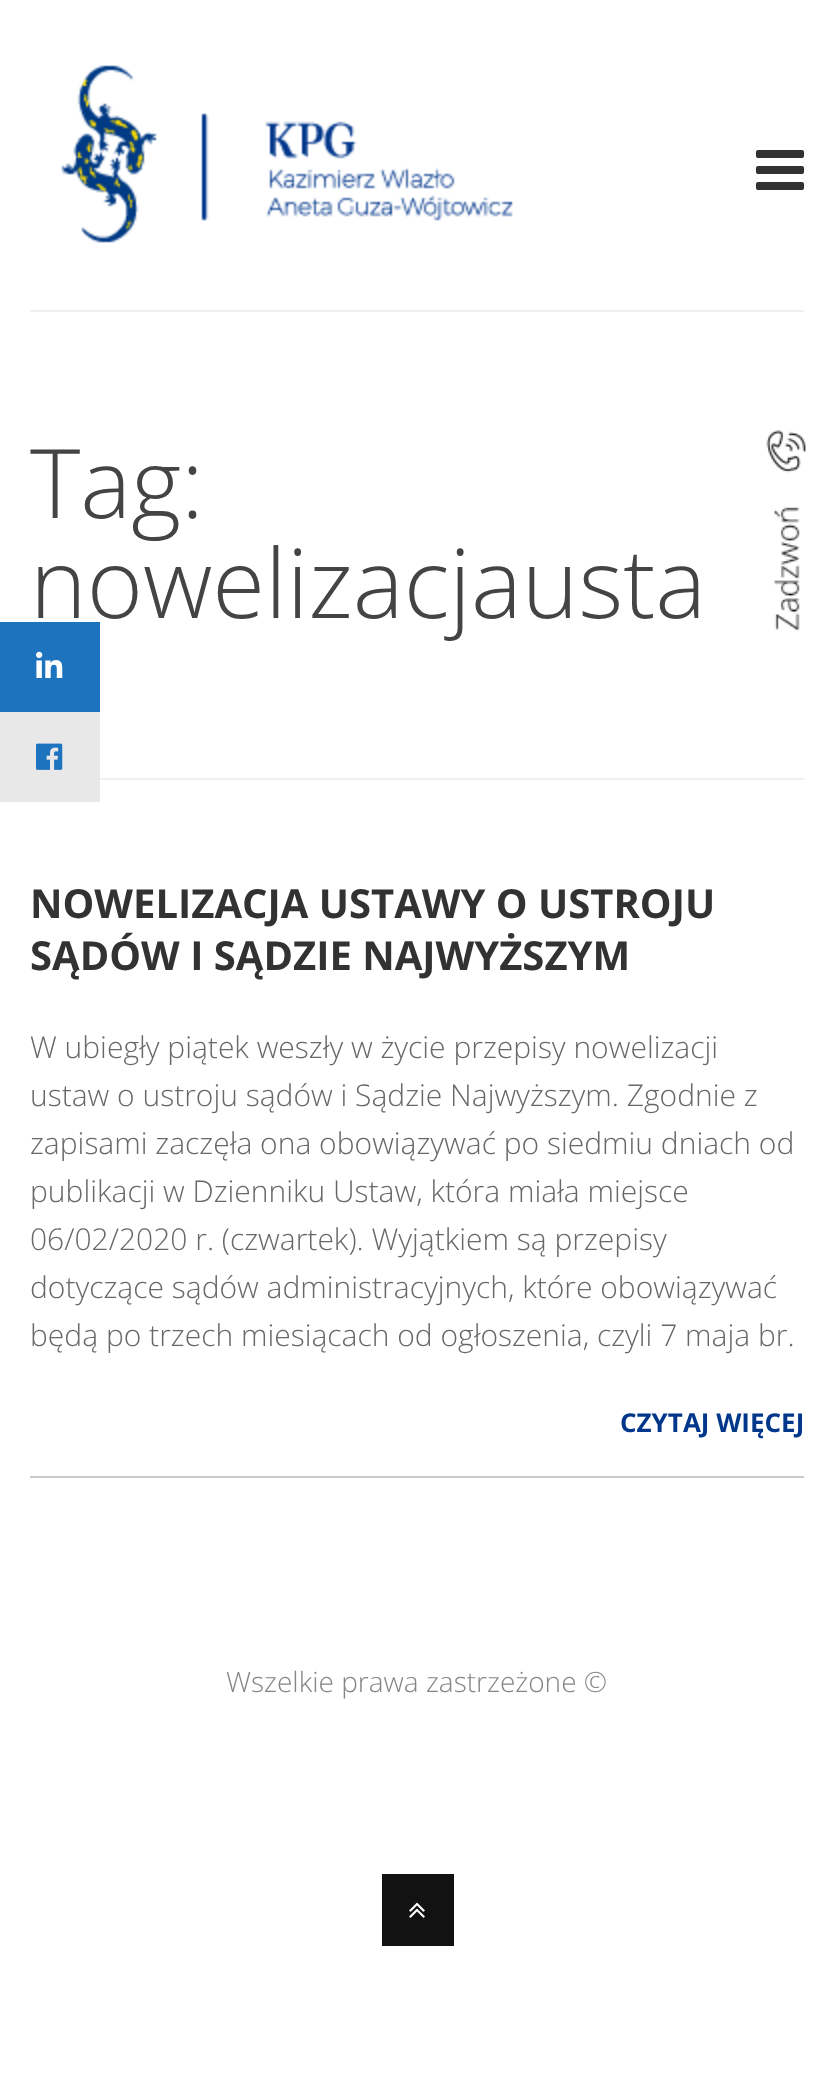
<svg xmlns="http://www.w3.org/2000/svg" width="833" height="2074">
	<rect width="100%" height="100%" fill="#FFFFFF" />
	<image x="61" y="65" width="452" height="178" href="assets/img1.png" />
	<image x="756" y="150" width="48" height="40" href="assets/img2.png" />
	<image x="736" y="430" width="70" height="212" href="assets/img3.png" />
	<rect x="30" y="310" width="774" height="2" fill="#EFEFEF" />
	<rect x="100" y="778" width="704" height="2" fill="#EFEFEF" />
	<g font-family="Open Sans" font-size="96" font-weight="300" fill="#444444">
		<text x="30" y="518">Tag:</text>
		<text x="30" y="618">nowelizacjausta</text>
	</g>
	<rect x="30" y="1476" width="774" height="2" fill="#CACACA" />
	<g font-family="Open Sans" font-size="40" font-weight="700" fill="#323232">
		<text x="30" y="918">NOWELIZACJA USTAWY O USTROJU</text>
		<text x="30" y="970">SĄDÓW I SĄDZIE NAJWYŻSZYM</text>
	</g>
	<g font-family="Open Sans" font-size="30" font-weight="300" fill="#686868">
		<text x="30" y="1058">W ubiegły piątek weszły w życie przepisy nowelizacji</text>
		<text x="30" y="1106">ustaw o ustroju sądów i Sądzie Najwyższym. Zgodnie z</text>
		<text x="30" y="1154">zapisami zaczęła ona obowiązywać po siedmiu dniach od</text>
		<text x="30" y="1202">publikacji w Dzienniku Ustaw, która miała miejsce</text>
		<text x="30" y="1250">06/02/2020 r. (czwartek). Wyjątkiem są przepisy</text>
		<text x="30" y="1298">dotyczące sądów administracyjnych, które obowiązywać</text>
		<text x="30" y="1346">będą po trzech miesiącach od ogłoszenia, czyli 7 maja br.</text>
	</g>
	<text x="620" y="1432" font-family="Open Sans" font-size="26" font-weight="700" fill="#00378B">CZYTAJ WIĘCEJ</text>
	<text x="226" y="1692" font-family="Open Sans" font-size="28" font-weight="300" fill="#868686">Wszelkie prawa zastrzeżone ©</text>
	<rect x="382" y="1874" width="72" height="72" fill="#121212" />
	<image x="409" y="1902" width="16" height="16" href="assets/img4.png" />
	<rect x="0" y="622" width="100" height="90" fill="#1E73BE" />
	<image x="36" y="651" width="27" height="27" href="assets/img5.png" />
	<rect x="0" y="712" width="100" height="90" fill="#E8E8E8" />
	<image x="36" y="743" width="27" height="27" href="assets/img6.png" />
</svg>
